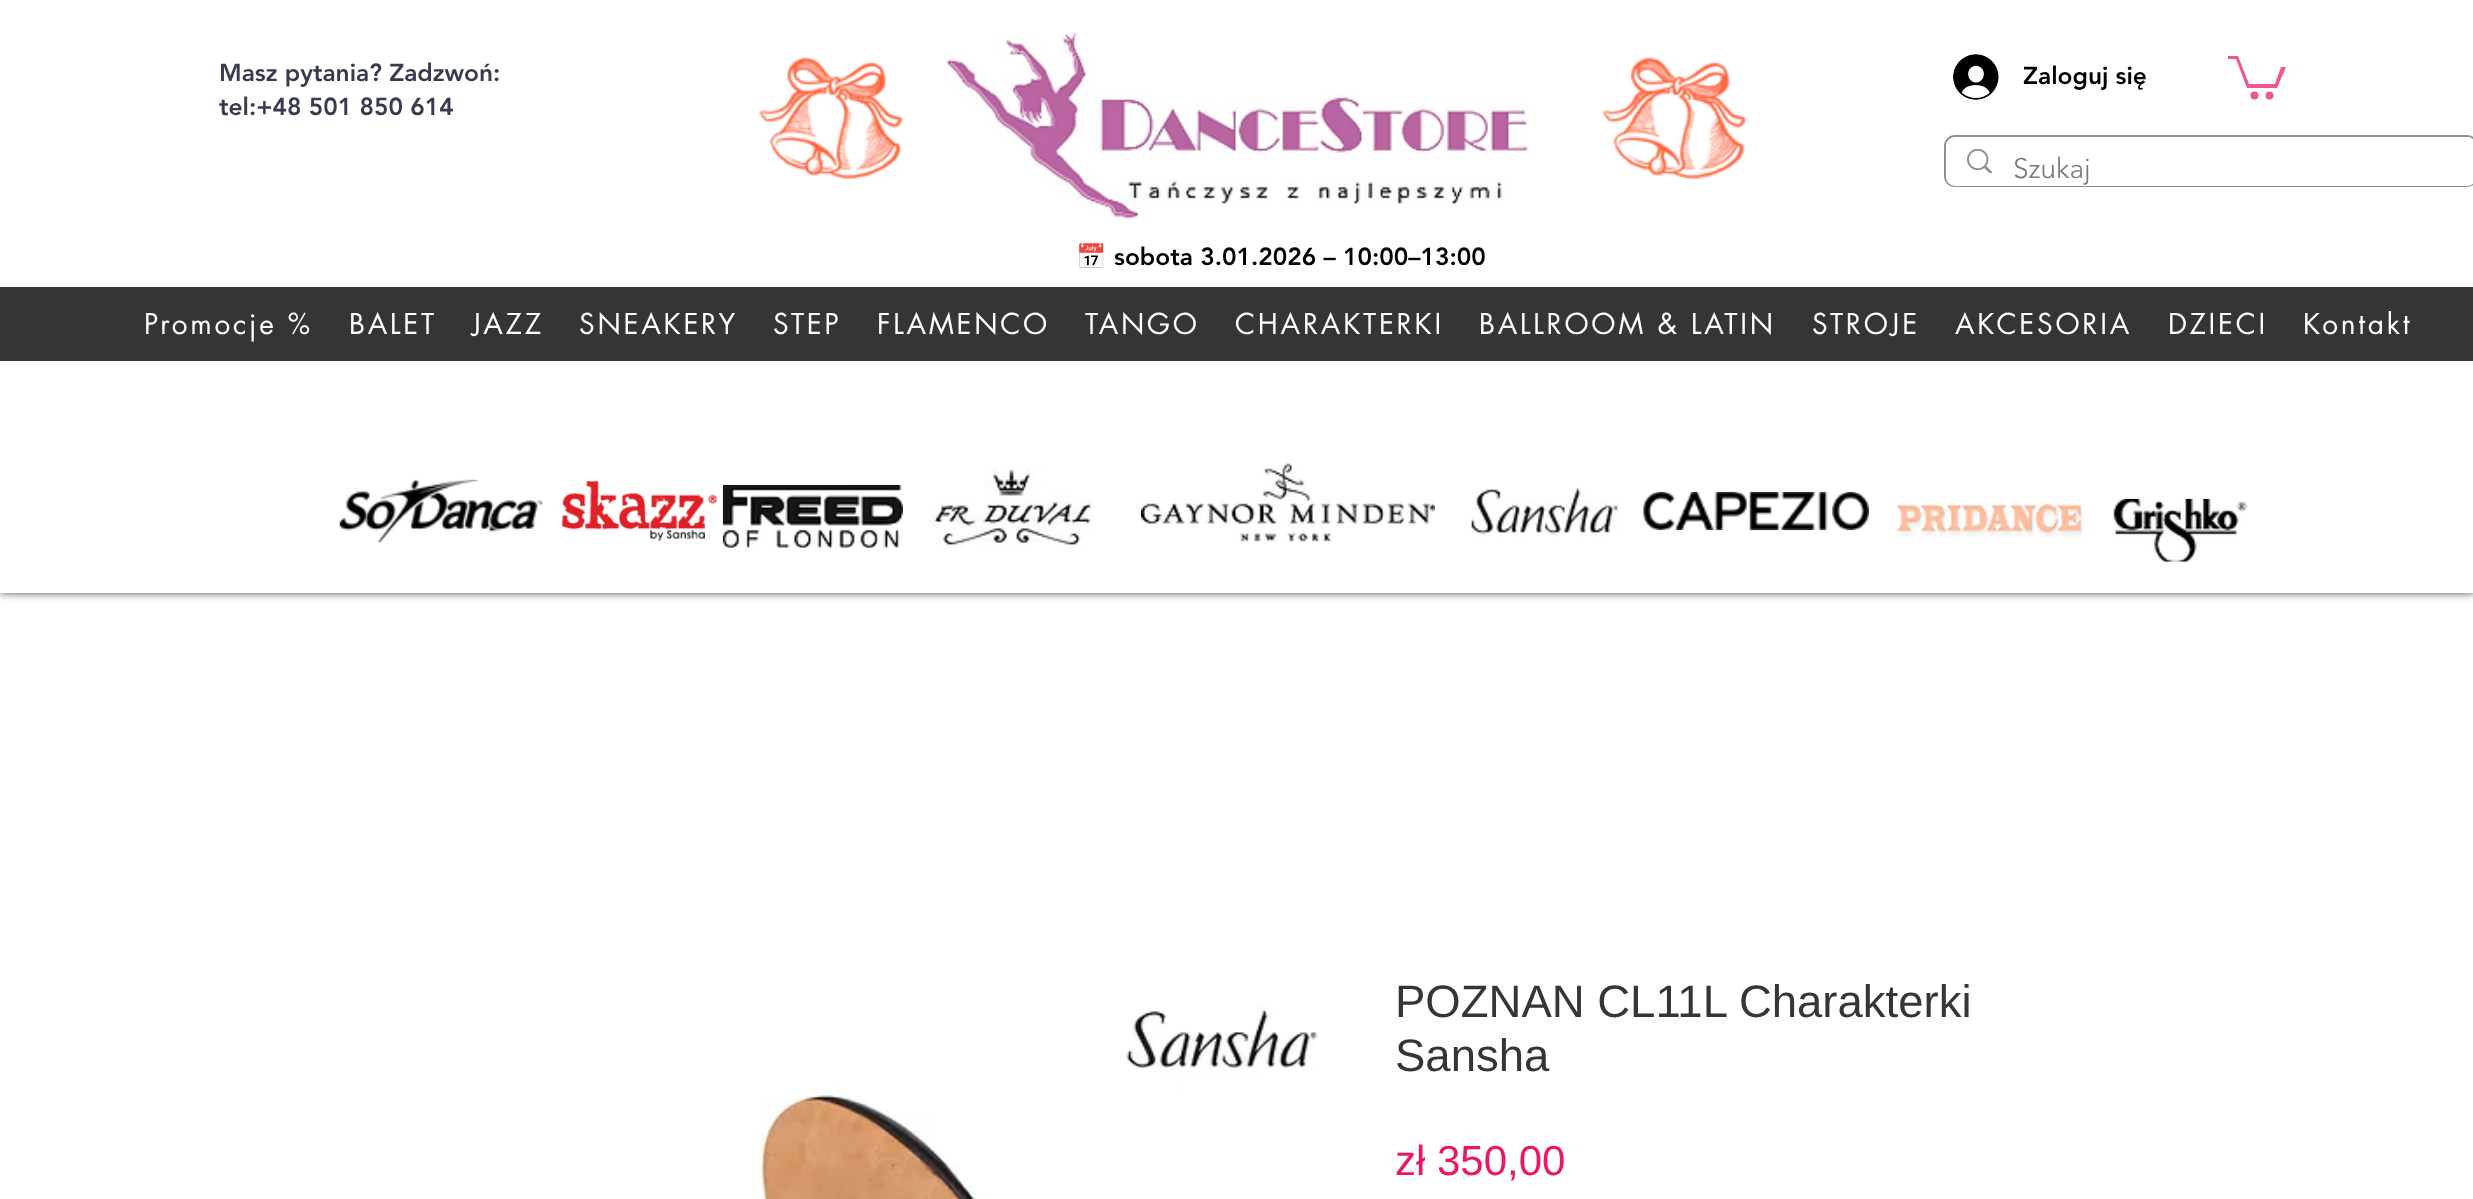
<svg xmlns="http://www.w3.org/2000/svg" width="2473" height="1199">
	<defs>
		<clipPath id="clip1"><rect x="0" y="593" width="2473" height="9" /></clipPath>
	</defs>
	<rect width="100%" height="100%" fill="#FFFFFF" />
	<g clip-path="url(#clip1)">
		<rect x="0" y="0" width="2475" height="593" fill="#000000" fill-opacity="0.7" filter="blur(4.5px)" />
	</g>
	<g font-family="'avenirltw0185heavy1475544'" font-size="24.5" font-weight="900" fill="#373B4D">
		<text x="219" y="81">Masz pytania? Zadzwoń:</text>
		<text x="219" y="115">tel:+48 501 850 614</text>
	</g>
	<image x="759" y="57" width="145" height="122" href="assets/img1.png" />
	<image x="946" y="32" width="583" height="188" href="assets/img2.png" />
	<image x="1602" y="57" width="145" height="122" href="assets/img3.png" />
	<image x="1953" y="54" width="46" height="46" href="assets/img4.png" />
	<text x="2023" y="84" font-family="'avenirltw0185heavy1475544'" font-size="24.5" font-weight="900" fill="#000000">Zaloguj się</text>
	<path d="M2286 67L2277 88H2247L2236 59H2228V56H2238L2249 84H2275L2281 67" fill="#F05694" />
	<circle cx="2269.5" cy="95.5" r="4" fill="#F05694" />
	<circle cx="2254.5" cy="95.5" r="4" fill="#F05694" />
	<rect x="1945" y="136" width="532" height="50" rx="10" fill="none" stroke="#918E8E" stroke-width="2" />
	<rect x="1946" y="137" width="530" height="49" rx="9" fill="#FFFFFF" />
	<image x="1967" y="149" width="25" height="24" href="assets/img5.png" />
	<text x="2013" y="178" font-family="'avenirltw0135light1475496'" font-size="28" font-weight="300" fill="#787878">Szukaj</text>
	<text x="1076" y="265" font-family="Noto Color Emoji" font-size="24.5" fill="#000000">📅</text>
	<text x="1114" y="265" font-family="'avenirltw0185heavy1475544'" font-size="24.5" font-weight="900" fill="#000000">sobota 3.01.2026 – 10:00–13:00</text>
	<rect x="0" y="287" width="2473" height="74" fill="#353535" />
	<g font-family="futura" font-size="28" letter-spacing="2.75" fill="#FFFFFF">
		<text x="144" y="334">Promocje %</text>
		<text x="349" y="334">BALET</text>
		<text x="472" y="334">JAZZ</text>
		<text x="579" y="334">SNEAKERY</text>
		<text x="773" y="334">STEP</text>
		<text x="877" y="334">FLAMENCO</text>
		<text x="1085" y="334">TANGO</text>
		<text x="1235" y="334">CHARAKTERKI</text>
		<text x="1479" y="334">BALLROOM &amp; LATIN</text>
		<text x="1812" y="334">STROJE</text>
		<text x="1955" y="334">AKCESORIA</text>
		<text x="2168" y="334">DZIECI</text>
		<text x="2303" y="334">Kontakt</text>
	</g>
	<image x="339" y="479" width="204" height="64" href="assets/img6.png" />
	<image x="562" y="480" width="155" height="61" href="assets/img7.png" />
	<image x="722" y="484" width="181" height="64" href="assets/img8.png" />
	<image x="930" y="467" width="163" height="82" href="assets/img9.png" />
	<image x="1141" y="463" width="294" height="79" href="assets/img10.png" />
	<image x="1471" y="487" width="148" height="50" href="assets/img11.png" />
	<image x="1643" y="491" width="226" height="40" href="assets/img12.png" />
	<image x="1896" y="503" width="187" height="35" href="assets/img13.png" />
	<image x="2113" y="498" width="135" height="64" href="assets/img14.png" />
	<image x="754" y="1005" width="564" height="194" href="assets/img15.png" />
	<g font-family="Liberation Sans" font-size="45.5" fill="#353535">
		<text x="1395" y="1017">POZNAN CL11L Charakterki</text>
		<text x="1395" y="1071">Sansha</text>
	</g>
	<text x="1395" y="1175" font-family="Liberation Sans" font-size="42" fill="#ED1566">zł 350,00</text>
</svg>
